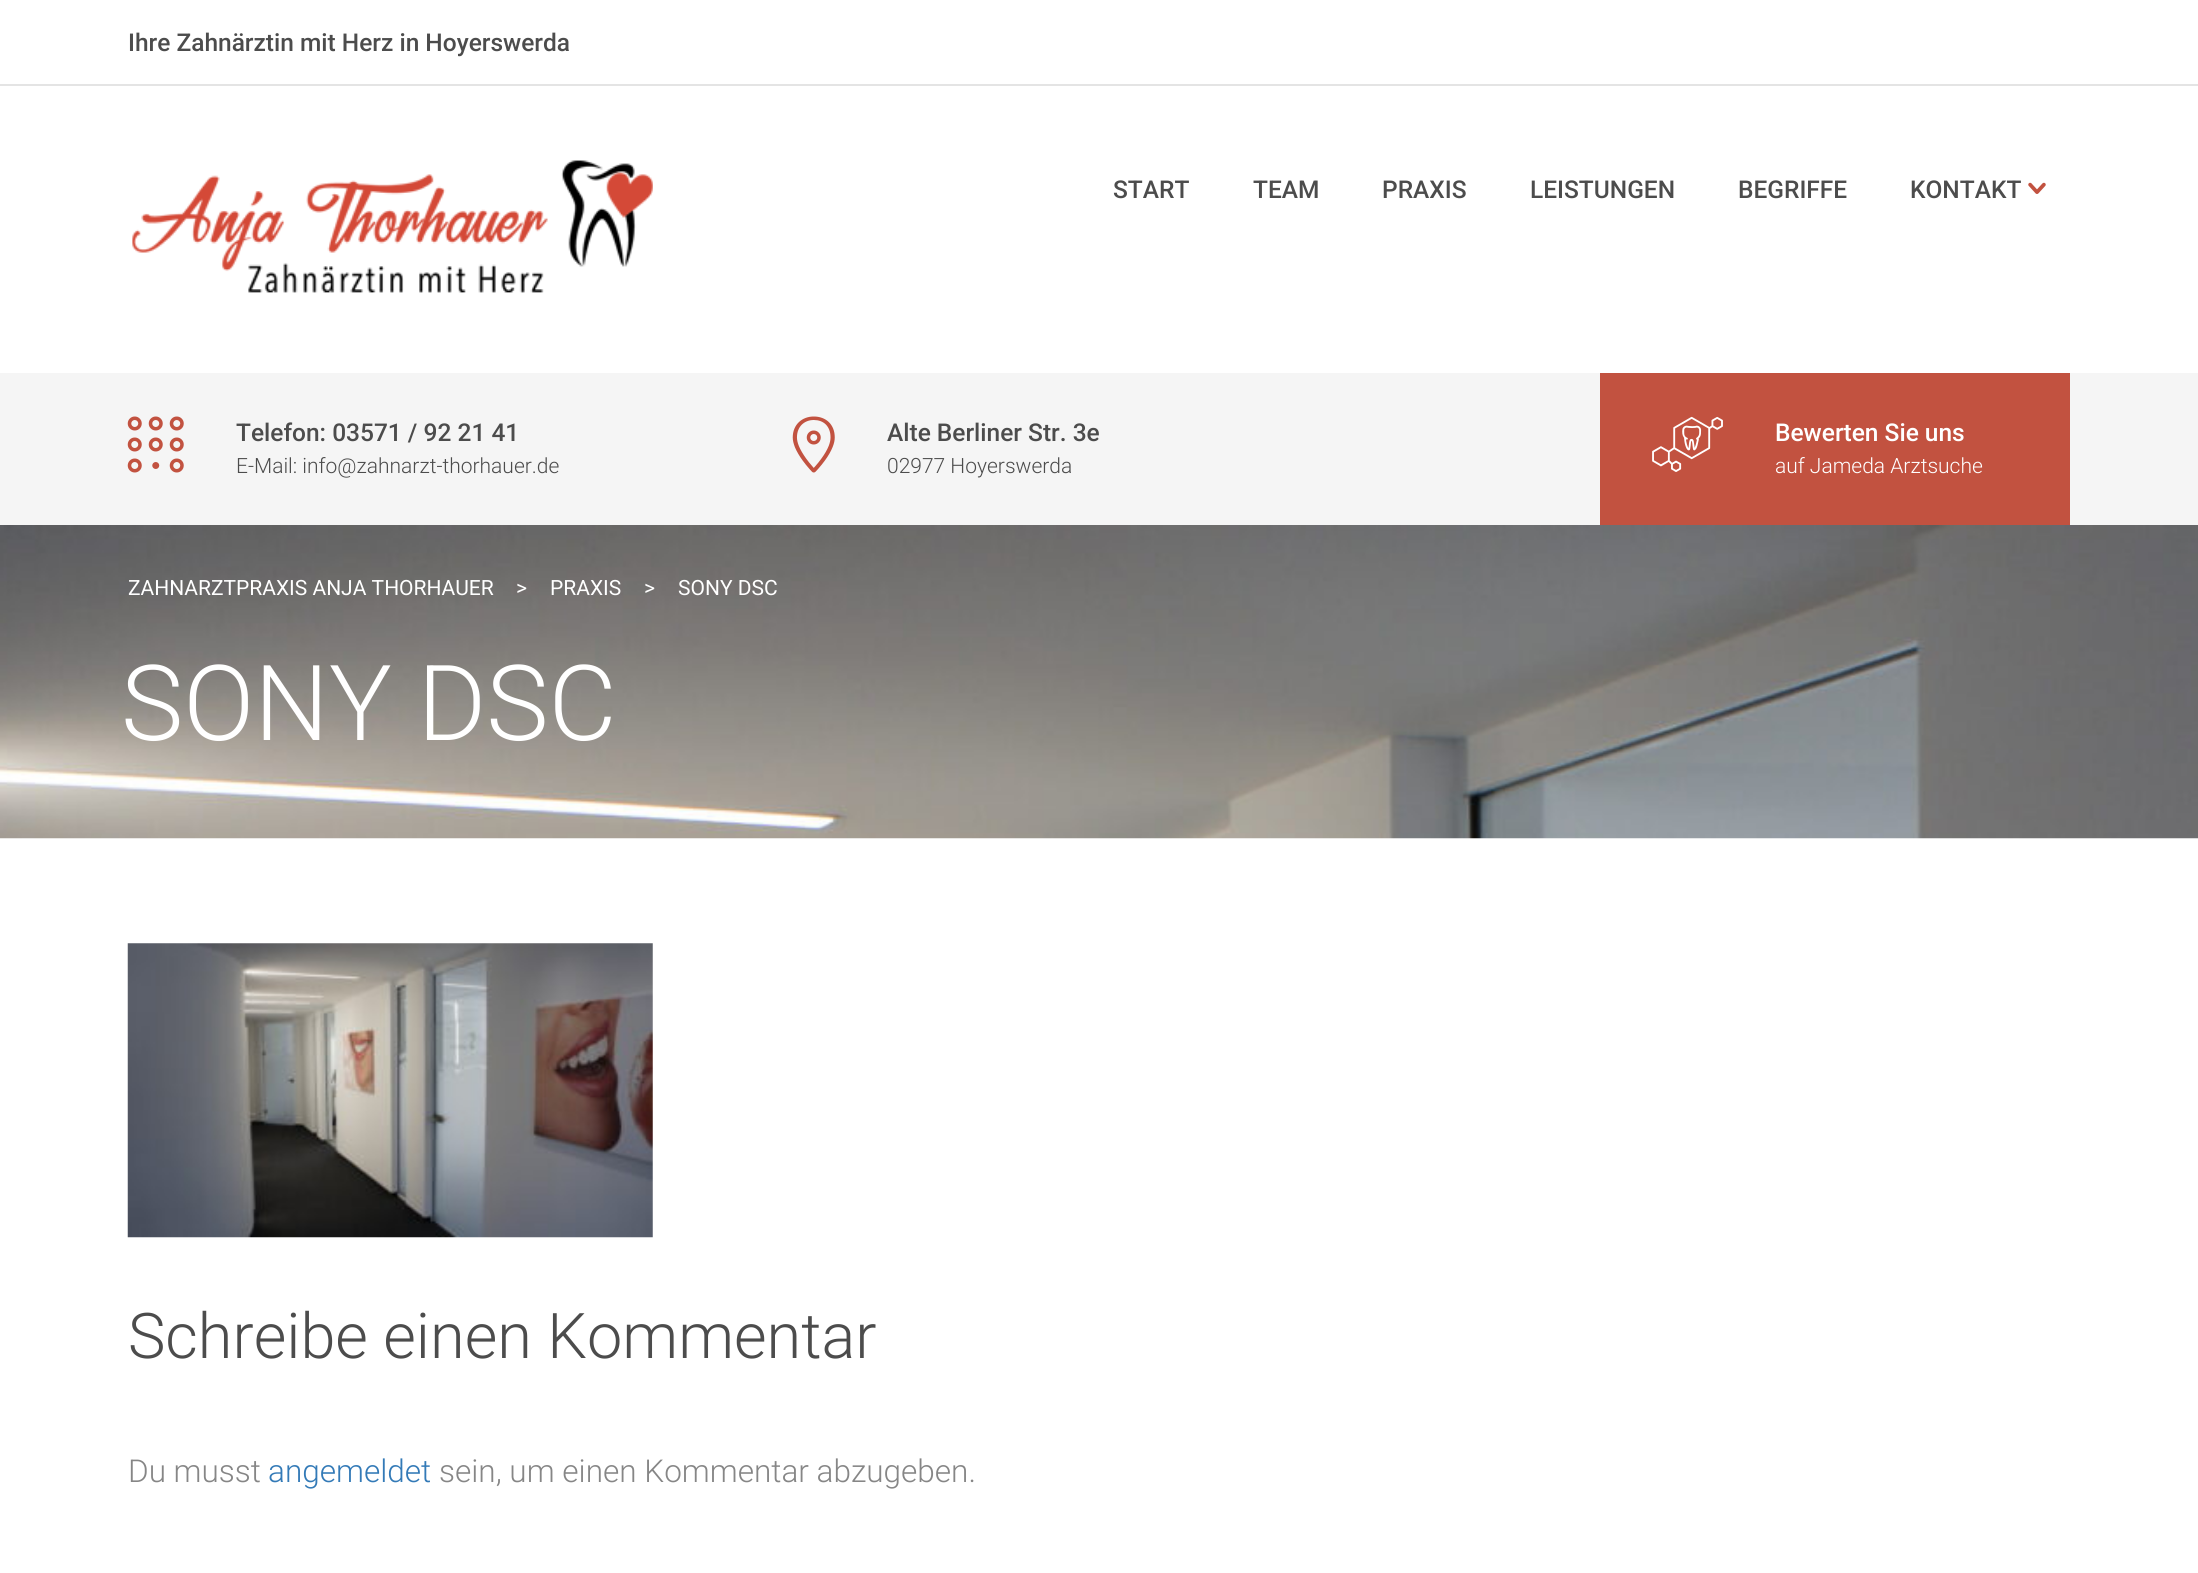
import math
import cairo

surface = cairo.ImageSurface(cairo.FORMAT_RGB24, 2198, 1573)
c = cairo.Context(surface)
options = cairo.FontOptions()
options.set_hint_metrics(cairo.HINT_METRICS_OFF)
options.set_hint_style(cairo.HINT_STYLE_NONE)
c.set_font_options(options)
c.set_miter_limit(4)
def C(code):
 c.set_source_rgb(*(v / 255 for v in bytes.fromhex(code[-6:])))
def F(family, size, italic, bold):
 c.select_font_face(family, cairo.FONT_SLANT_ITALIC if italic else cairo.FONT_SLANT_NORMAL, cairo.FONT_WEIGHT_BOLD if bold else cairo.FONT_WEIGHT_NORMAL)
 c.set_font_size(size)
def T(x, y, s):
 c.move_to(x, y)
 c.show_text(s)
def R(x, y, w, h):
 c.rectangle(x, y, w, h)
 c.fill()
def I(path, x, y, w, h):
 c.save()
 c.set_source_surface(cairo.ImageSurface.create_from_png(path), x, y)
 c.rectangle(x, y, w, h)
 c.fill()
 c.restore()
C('ffffff')
c.paint()
C('e4e4e4')
R(0,84,2198,2)
F('Roboto Medium',24.5,0,0)
C('4c4c4c')
T(128,51,'Ihre Zahnärztin mit Herz in Hoyerswerda')
I('1.png',132,160,521,133)
T(1113,198,'START')
T(1253,198,'TEAM')
T(1382,198,'PRAXIS')
T(1530,198,'LEISTUNGEN')
T(1738,198,'BEGRIFFE')
T(1910,198,'KONTAKT')
I('2.png',2028,182,18,12)
C('f5f5f5')
R(0,373,2198,152)
I('3.png',127,416,57,57)
C('4c4c4c')
T(236,441,'Telefon: 03571 / 92 21 41')
F('Roboto Light',21,0,0)
T(236,473,'E-Mail: info@zahnarzt-thorhauer.de')
I('4.png',792,416,43,57)
F('Roboto Medium',24.5,0,0)
T(887,441,'Alte Berliner Str. 3e')
F('Roboto Light',21,0,0)
T(887,473,'02977 Hoyerswerda')
C('c25240')
R(1600,373,470,152)
I('5.png',1652,416,71,56)
F('Roboto Medium',24.5,0,0)
C('ffffff')
T(1775,441,'Bewerten Sie uns')
F('Roboto Light',21,0,0)
T(1775,473,'auf Jameda Arztsuche')
I('6.png',0,525,2198,314)
F('Roboto',21,0,0)
T(128,595,'ZAHNARZTPRAXIS ANJA THORHAUER')
T(516,595,'>')
T(550,595,'PRAXIS')
T(644,595,'>')
T(678,595,'SONY DSC')
F('Roboto Light',105,0,0)
T(121,740,'SONY DSC')
I('7.png',127,943,526,295)
F('Roboto Light',63,0,0)
C('4c4c4c')
T(128,1358,'Schreibe einen Kommentar')
F('Roboto Light',31.5,0,0)
C('868686')
T(128,1482,'Du musst')
C('337ab7')
T(268,1482,'angemeldet')
C('868686')
T(439,1482,'sein, um einen Kommentar abzugeben.')
surface.write_to_png('o.png')
